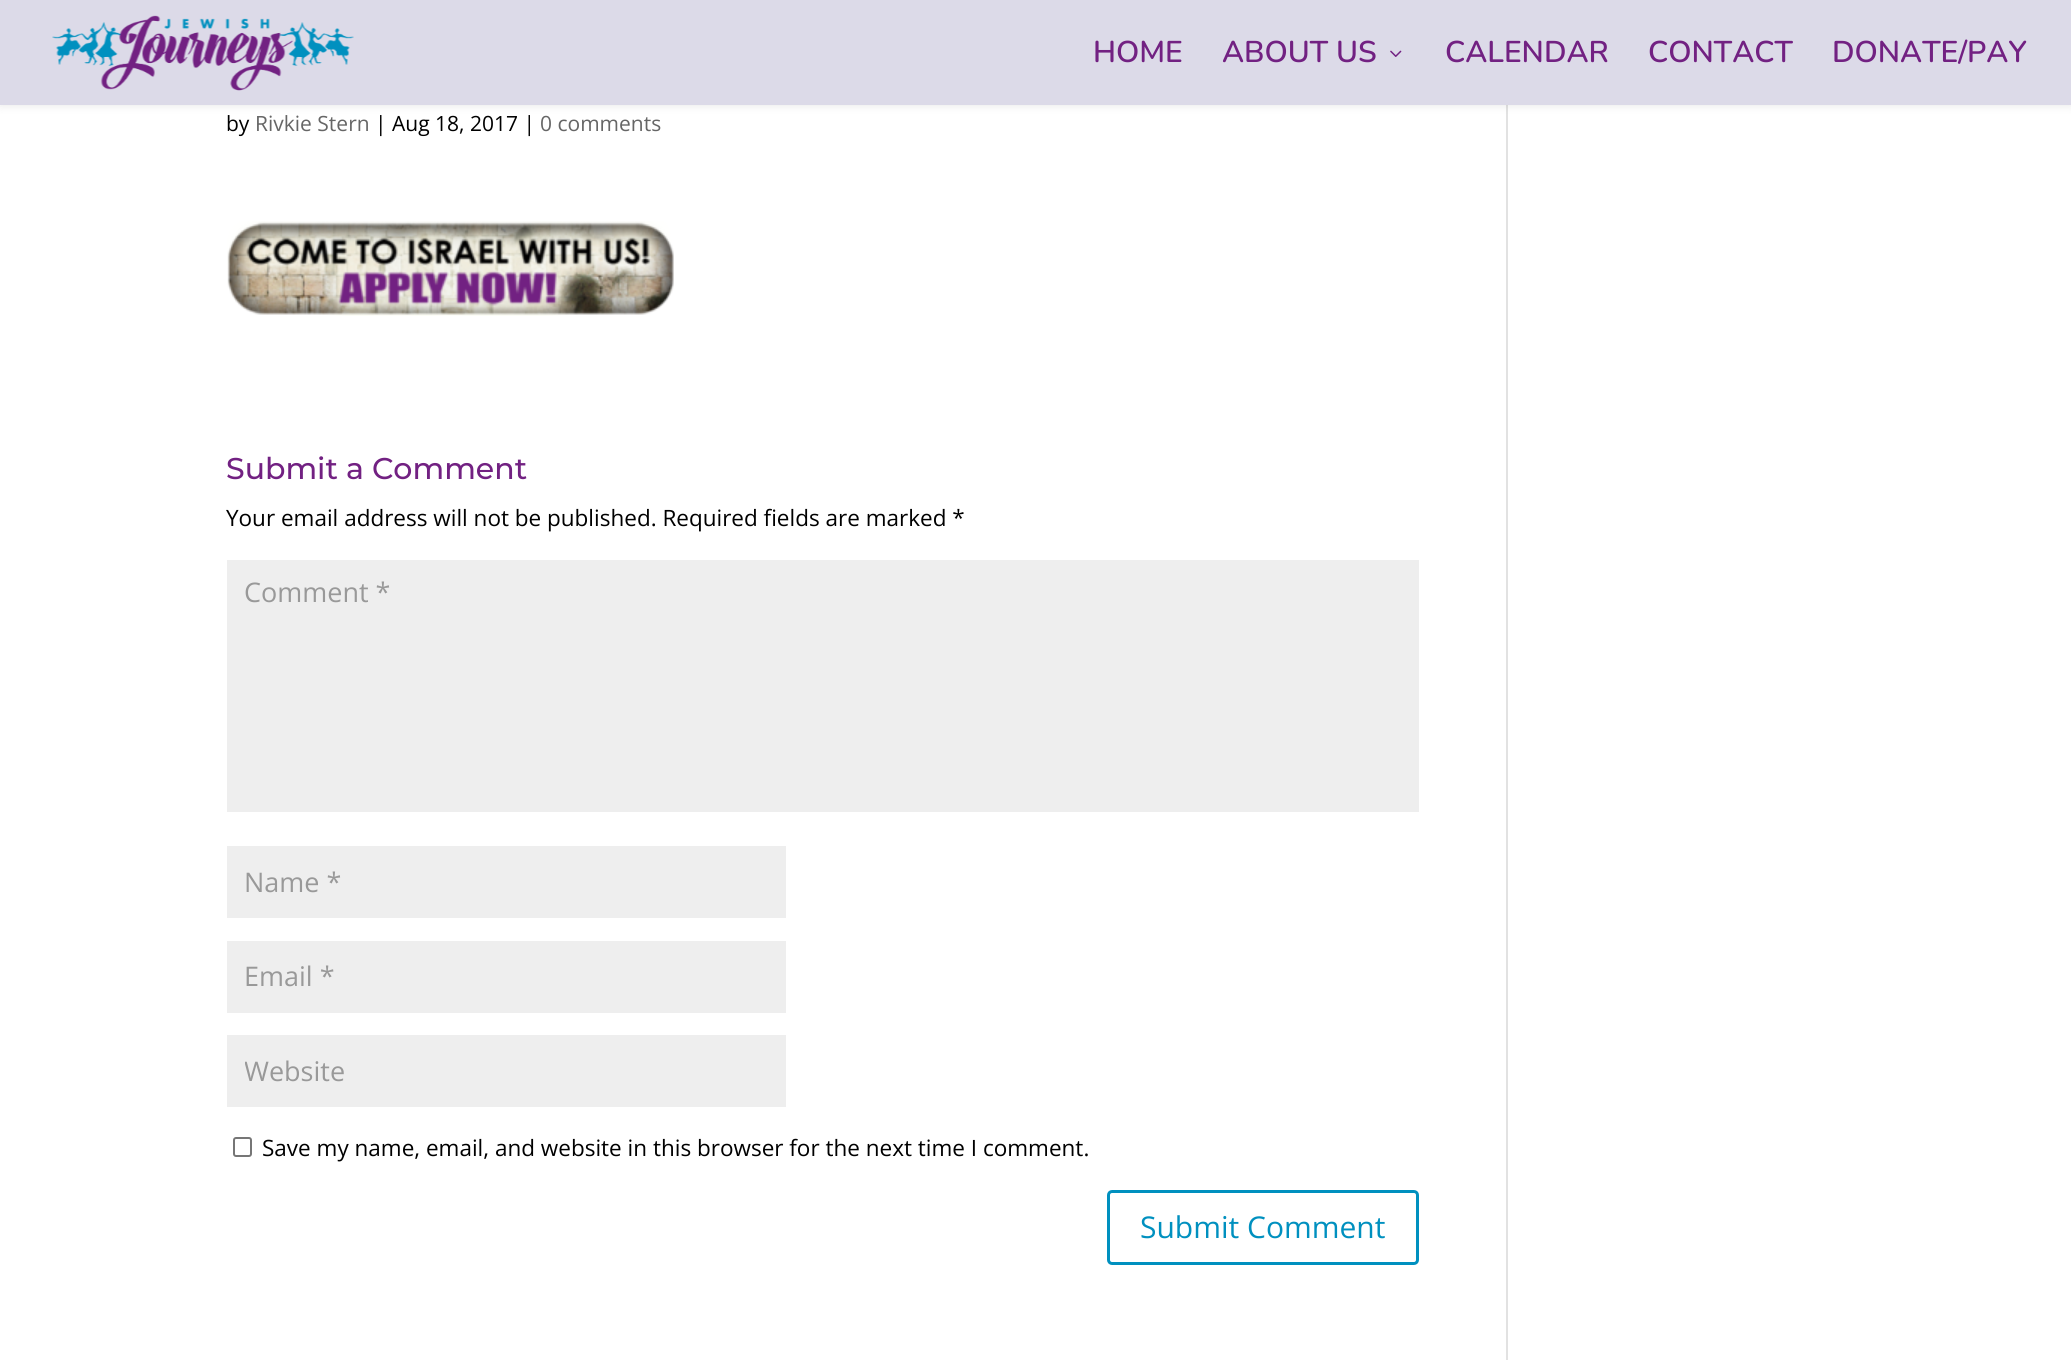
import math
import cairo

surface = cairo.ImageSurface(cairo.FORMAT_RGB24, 2071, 1360)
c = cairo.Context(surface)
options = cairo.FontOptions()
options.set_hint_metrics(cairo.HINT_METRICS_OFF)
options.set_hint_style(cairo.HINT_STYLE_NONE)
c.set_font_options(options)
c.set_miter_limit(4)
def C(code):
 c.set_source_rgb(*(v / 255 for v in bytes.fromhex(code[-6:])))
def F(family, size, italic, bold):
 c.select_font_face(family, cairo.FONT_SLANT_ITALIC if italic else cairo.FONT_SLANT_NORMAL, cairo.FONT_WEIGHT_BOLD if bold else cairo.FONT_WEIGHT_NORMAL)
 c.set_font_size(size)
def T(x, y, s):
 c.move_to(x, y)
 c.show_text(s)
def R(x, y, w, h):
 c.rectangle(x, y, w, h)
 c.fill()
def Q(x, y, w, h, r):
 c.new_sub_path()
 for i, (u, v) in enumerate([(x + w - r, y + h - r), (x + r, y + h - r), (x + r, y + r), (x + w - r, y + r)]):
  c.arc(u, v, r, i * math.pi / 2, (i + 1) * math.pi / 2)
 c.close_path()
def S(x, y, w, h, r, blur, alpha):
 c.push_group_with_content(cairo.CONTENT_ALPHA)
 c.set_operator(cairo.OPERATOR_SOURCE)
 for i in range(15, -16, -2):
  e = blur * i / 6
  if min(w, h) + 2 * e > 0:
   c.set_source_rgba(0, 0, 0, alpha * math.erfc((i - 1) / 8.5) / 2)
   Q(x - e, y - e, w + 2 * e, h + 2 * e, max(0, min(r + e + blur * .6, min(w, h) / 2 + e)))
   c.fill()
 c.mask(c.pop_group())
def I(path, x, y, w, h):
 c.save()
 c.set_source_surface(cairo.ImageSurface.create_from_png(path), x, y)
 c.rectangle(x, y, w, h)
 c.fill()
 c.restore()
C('ffffff')
c.paint()
C('e2e2e2')
R(1506,105,2,1255)
C('000000')
S(0,0,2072,105,0,5,.1)
C('dcdae8')
R(0,0,2071,105)
I('1.png',52,15,302,76)
F('Nunito SemiBold',30,0,0)
C('722182')
T(1093,62,'HOME')
T(1222,62,'ABOUT US')
I('2.png',1390,50,12,7)
T(1445,62,'CALENDAR')
T(1648,62,'CONTACT')
T(1832,62,'DONATE/PAY')
F('Open Sans',21,0,0)
C('000000')
T(226,131,'by')
C('666666')
T(255,131,'Rivkie Stern')
C('000000')
T(375,131,'| Aug 18, 2017 |')
C('666666')
T(540,131,'0 comments')
I('3.png',227,221,447,95)
F('Montserrat Medium',30,0,0)
C('722182')
T(226,479,'Submit a Comment')
F('Open Sans',22.5,0,0)
C('000000')
T(226,526,'Your email address will not be published. Required fields are marked *')
C('eeeeee')
R(227,560,1192,252)
F('Open Sans',27,0,0)
C('999999')
T(244,602,'Comment *')
C('eeeeee')
R(227,846,559,72)
C('999999')
T(244,892,'Name *')
C('eeeeee')
R(227,941,559,72)
C('999999')
T(244,986,'Email *')
C('eeeeee')
R(227,1035,559,72)
c.save()
c.rectangle(245,1053,523,36)
c.clip()
C('999999')
T(244,1081,'Website')
c.restore()
Q(234,1138,17,18,2)
C('767676')
c.stroke()
F('Open Sans',22.5,0,0)
C('000000')
T(262,1156,'Save my name, email, and website in this browser for the next time I comment.')
Q(1108.5,1191.5,309,72,3.5)
C('0090bf')
c.set_line_width(3)
c.stroke()
F('Open Sans',30,0,0)
T(1140,1238,'Submit Comment')
surface.write_to_png('o.png')
